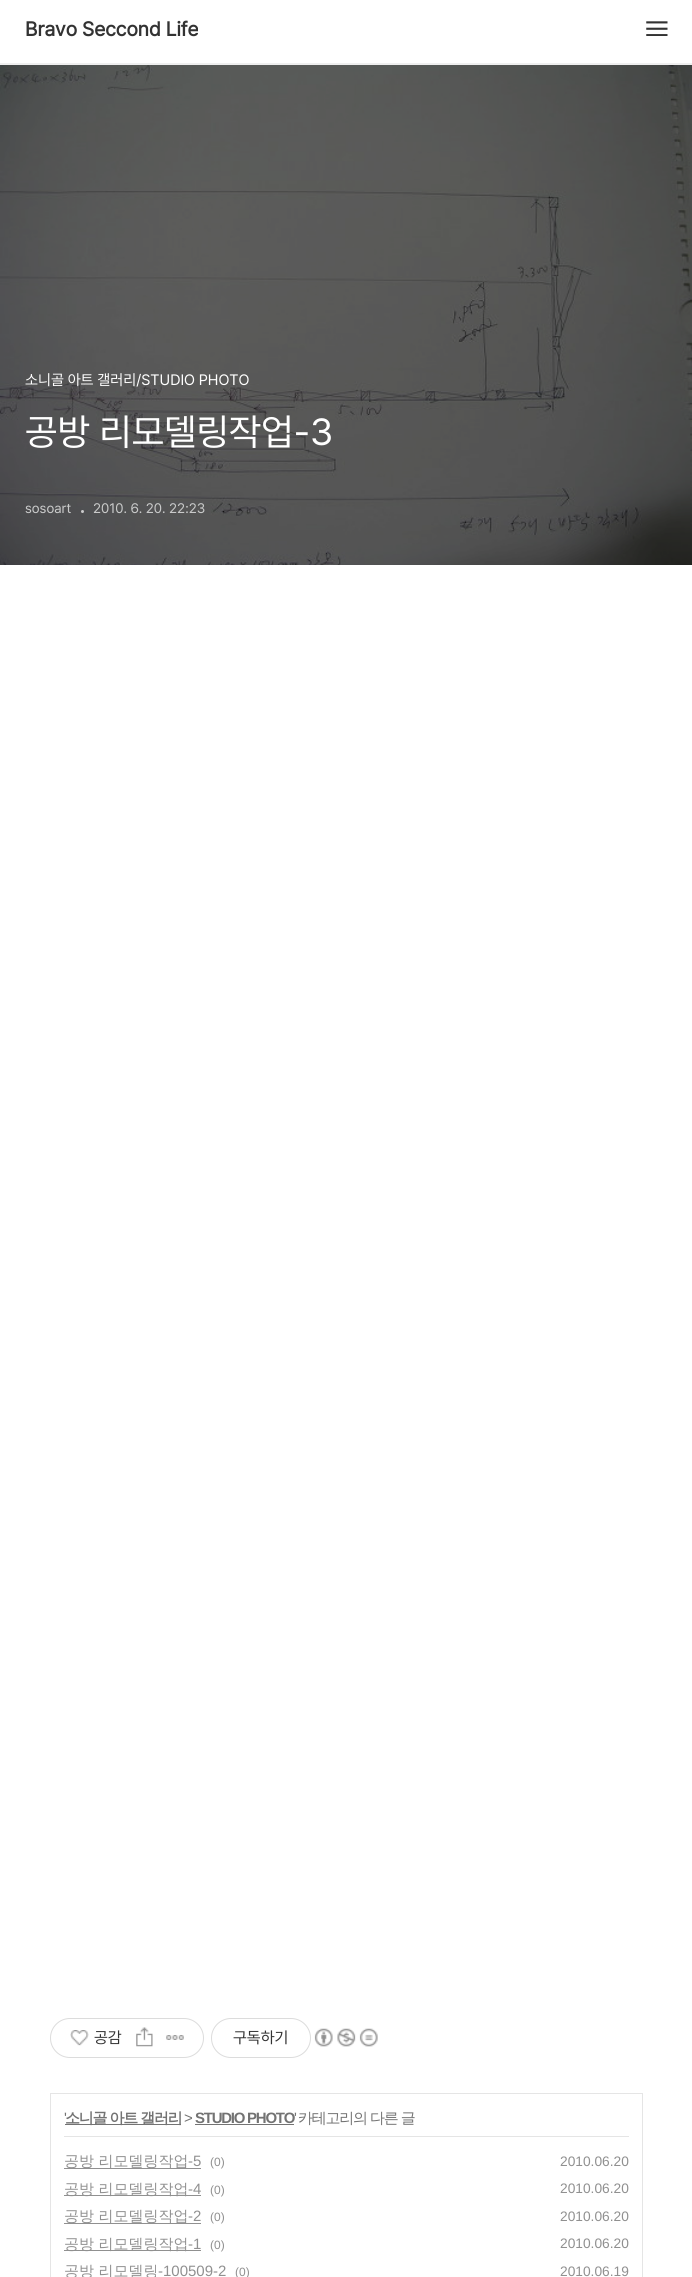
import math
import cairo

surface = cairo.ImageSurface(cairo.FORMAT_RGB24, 692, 2277)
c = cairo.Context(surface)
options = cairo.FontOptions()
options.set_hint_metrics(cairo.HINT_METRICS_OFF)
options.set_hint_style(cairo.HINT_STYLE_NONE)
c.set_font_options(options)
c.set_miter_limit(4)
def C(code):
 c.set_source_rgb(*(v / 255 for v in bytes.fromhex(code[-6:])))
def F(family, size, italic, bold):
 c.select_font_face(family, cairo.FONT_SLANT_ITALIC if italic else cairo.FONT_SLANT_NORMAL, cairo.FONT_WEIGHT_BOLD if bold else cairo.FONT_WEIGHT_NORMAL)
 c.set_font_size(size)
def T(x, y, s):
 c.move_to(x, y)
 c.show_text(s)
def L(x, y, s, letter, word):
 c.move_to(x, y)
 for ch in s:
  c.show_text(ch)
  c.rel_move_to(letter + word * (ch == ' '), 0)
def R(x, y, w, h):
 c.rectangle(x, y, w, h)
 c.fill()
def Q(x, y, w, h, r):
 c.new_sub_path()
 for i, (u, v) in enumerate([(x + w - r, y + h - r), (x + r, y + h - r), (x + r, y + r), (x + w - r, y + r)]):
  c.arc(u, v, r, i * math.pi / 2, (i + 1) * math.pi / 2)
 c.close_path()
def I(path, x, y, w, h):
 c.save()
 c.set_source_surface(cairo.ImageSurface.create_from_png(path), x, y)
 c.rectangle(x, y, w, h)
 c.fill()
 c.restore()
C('ffffff')
c.paint()
C('efefef')
R(0,63,692,2)
F('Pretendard',20,0,1)
C('333333')
T(25,36,'Bravo Seccond Life')
I('1.png',646,21,22,15)
I('2.png',0,65,692,500)
F('Pretendard',15,0,0)
C('ffffff')
T(25,385,'소니골 아트 갤러리/STUDIO PHOTO')
F('Pretendard',37.5,0,0)
T(25,445,'공방 리모델링작업-3')
F('Pretendard',13.75,0,0)
C('c9caca')
T(25,513,'sosoart')
C('cacacb')
c.new_path()
c.arc(82.5,511.5,1.5,0,2 * math.pi)
c.fill()
C('c9caca')
T(93,513,'2010. 6. 20. 22:23')
Q(50.5,2018.5,153,39,19.5)
C('dcdcdc')
c.set_line_width(1)
c.stroke()
I('3.png',70,2030,19,16)
F('Pretendard',16,0,0)
C('333333')
T(94,2043,'공감')
I('4.png',136,2027,17,20)
I('5.png',166,2035,18,5)
Q(211.5,2018.5,99,39,19.5)
C('dcdcdc')
c.stroke()
C('333333')
T(233,2043,'구독하기')
I('6.png',314,2028,19,19)
I('7.png',337,2028,19,19)
I('8.png',359,2028,19,19)
c.rectangle(50.5,2093.5,592,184)
C('e5e5e5')
c.stroke()
R(64,2136,565,1)
F('Liberation Sans',15,0,0)
C('737373')
L(64,2123,'\'',-1.25,0)
R(65,2124,116,1)
F('WenQuanYi Zen Hei',15,0,1)
L(65,2123,'소니골 아트 갤러리',-1.25,0)
F('Liberation Sans',15,0,1)
L(195,2123,'STUDIO PHOTO',-1.25,0)
R(195,2124,99,1)
F('WenQuanYi Zen Hei Medium',15,0,0)
L(298,2123,'카테고리의 다른 글',-1.25,0)
F('Liberation Sans',15,0,0)
L(184,2123,'>',-1.25,0)
L(294,2123,'\'',-1.25,0)
C('909090')
R(64,2168,137,1)
F('WenQuanYi Zen Hei Medium',15,0,0)
T(64,2166,'공방 리모델링작업')
F('Liberation Sans',15,0,0)
T(188,2166,'-5')
F('Liberation Sans',12,0,0)
T(210,2166,'(0)')
F('Liberation Sans',13.75,0,0)
T(560,2166,'2010.06.20')
R(64,2195,137,1)
F('WenQuanYi Zen Hei Medium',15,0,0)
T(64,2194,'공방 리모델링작업')
F('Liberation Sans',15,0,0)
T(188,2194,'-4')
F('Liberation Sans',12,0,0)
T(210,2194,'(0)')
F('Liberation Sans',13.75,0,0)
T(560,2193,'2010.06.20')
R(64,2223,137,1)
F('WenQuanYi Zen Hei Medium',15,0,0)
T(64,2221,'공방 리모델링작업')
F('Liberation Sans',15,0,0)
T(188,2221,'-2')
F('Liberation Sans',12,0,0)
T(210,2221,'(0)')
F('Liberation Sans',13.75,0,0)
T(560,2221,'2010.06.20')
R(64,2250,137,1)
F('WenQuanYi Zen Hei Medium',15,0,0)
T(64,2249,'공방 리모델링작업')
F('Liberation Sans',15,0,0)
T(188,2249,'-1')
F('Liberation Sans',12,0,0)
T(210,2249,'(0)')
F('Liberation Sans',13.75,0,0)
T(560,2248,'2010.06.20')
F('WenQuanYi Zen Hei Medium',15,0,0)
T(64,2276,'공방 리모델링')
F('Liberation Sans',15,0,0)
T(158,2276,'-100509-2')
F('Liberation Sans',12,0,0)
T(235,2276,'(0)')
F('Liberation Sans',13.75,0,0)
T(560,2276,'2010.06.19')
surface.write_to_png('o.png')
